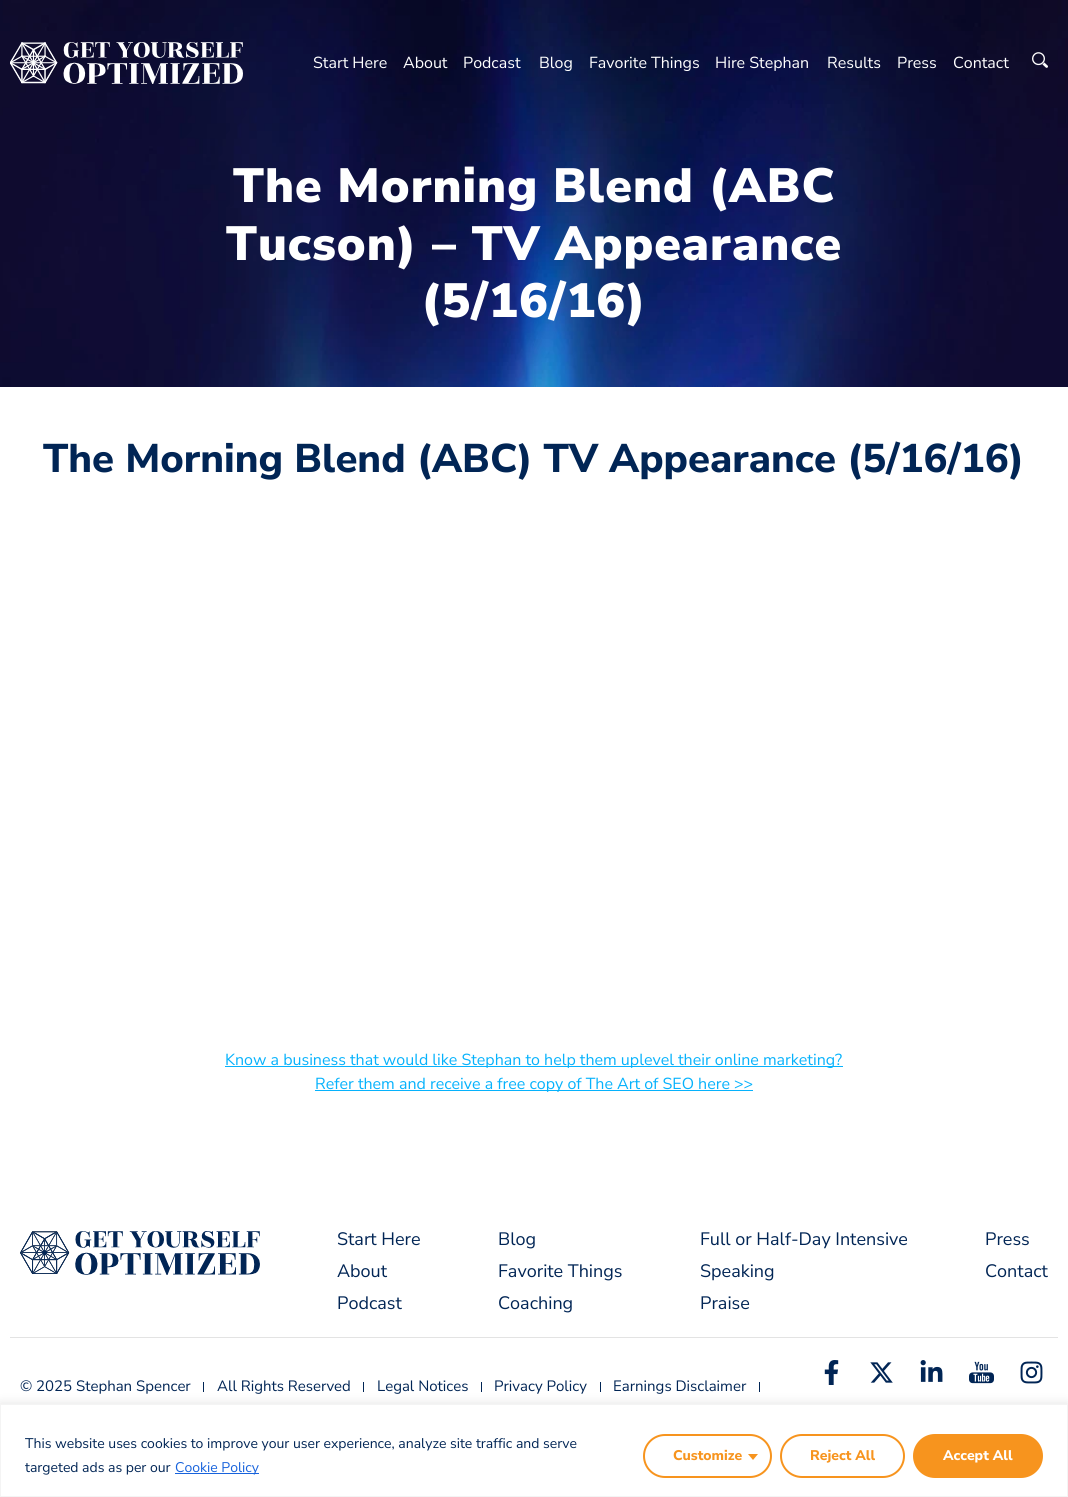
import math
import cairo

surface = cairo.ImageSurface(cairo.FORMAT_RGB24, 1068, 1497)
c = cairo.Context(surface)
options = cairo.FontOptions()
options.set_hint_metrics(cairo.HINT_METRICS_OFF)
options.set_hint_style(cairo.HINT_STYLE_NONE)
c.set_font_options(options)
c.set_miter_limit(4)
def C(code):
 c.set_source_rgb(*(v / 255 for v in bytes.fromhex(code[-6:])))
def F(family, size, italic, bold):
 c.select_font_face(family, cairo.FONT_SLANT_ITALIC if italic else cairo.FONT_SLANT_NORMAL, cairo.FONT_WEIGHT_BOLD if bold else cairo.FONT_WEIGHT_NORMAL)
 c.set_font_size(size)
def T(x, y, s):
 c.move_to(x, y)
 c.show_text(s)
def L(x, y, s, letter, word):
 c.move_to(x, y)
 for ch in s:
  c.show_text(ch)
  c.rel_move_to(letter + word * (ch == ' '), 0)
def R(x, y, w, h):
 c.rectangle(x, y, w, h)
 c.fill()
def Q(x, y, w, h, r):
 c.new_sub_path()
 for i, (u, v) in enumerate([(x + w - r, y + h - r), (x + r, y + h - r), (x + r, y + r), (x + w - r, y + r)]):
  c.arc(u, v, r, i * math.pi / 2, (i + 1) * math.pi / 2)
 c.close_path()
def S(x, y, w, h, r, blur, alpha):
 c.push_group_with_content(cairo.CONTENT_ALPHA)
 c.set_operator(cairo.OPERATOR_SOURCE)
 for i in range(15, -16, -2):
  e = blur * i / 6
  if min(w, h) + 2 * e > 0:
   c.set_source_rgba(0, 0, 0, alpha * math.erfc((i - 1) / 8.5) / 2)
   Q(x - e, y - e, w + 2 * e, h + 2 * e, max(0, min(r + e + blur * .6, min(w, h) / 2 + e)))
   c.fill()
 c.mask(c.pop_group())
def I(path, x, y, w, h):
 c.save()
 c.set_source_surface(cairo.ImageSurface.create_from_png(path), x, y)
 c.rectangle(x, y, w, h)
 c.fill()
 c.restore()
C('ffffff')
c.paint()
I('3.png',0,0,1068,387)
I('1.png',10,42,233,42)
F('Nunito Sans',16,0,0)
C('ffffff')
T(313,68,'Start Here')
T(403,68,'About')
T(463,68,'Podcast')
T(539,68,'Blog')
T(589,68,'Favorite Things')
T(715,68,'Hire Stephan')
T(827,68,'Results')
T(897,68,'Press')
T(953,68,'Contact')
I('2.png',1032,52,16,16)
F('Nunito Sans Black',48,0,0)
L(233,202,'The Morning Blend (ABC',1,0)
L(226,260,'Tucson) – TV Appearance',1,0)
L(421,317,'(5/16/16)',1,0)
F('Nunito Sans ExtraBold',40,0,0)
C('012555')
T(43,472,'The Morning Blend (ABC) TV Appearance (5/16/16)')
C('06b2fc')
R(225,1066,618,1)
F('Nunito Sans',16,0,0)
T(225,1065,'Know a business that would like Stephan to help them uplevel their online marketing?')
R(315,1090,438,1)
T(315,1089,'Refer them and receive a free copy of The Art of SEO here >>')
I('4.png',20,1231,240,44)
F('Nunito Sans',18,0,0)
C('012555')
T(337,1245,'Start Here')
T(337,1277,'About')
T(337,1309,'Podcast')
T(498,1245,'Blog')
T(498,1277,'Favorite Things')
T(498,1309,'Coaching')
T(700,1245,'Full or Half-Day Intensive')
T(700,1277,'Speaking')
T(700,1309,'Praise')
T(985,1245,'Press')
T(985,1277,'Contact')
C('e3e3e3')
R(10,1337,1048,1)
I('5.png',824,1360,15,25)
I('6.png',870,1362,23,21)
I('7.png',920,1360,23,22)
I('8.png',969,1361,25,23)
I('9.png',1020,1361,23,23)
F('Nunito Sans',15,0,0)
C('012555')
T(20,1391,'© 2025 Stephan Spencer')
R(203,1382,1,10)
T(217,1391,'All Rights Reserved')
R(363,1382,1,10)
T(377,1391,'Legal Notices')
R(481,1382,1,10)
T(494,1391,'Privacy Policy')
R(600,1382,1,10)
T(613,1391,'Earnings Disclaimer')
R(759,1382,1,10)
C('acabab')
S(0,1403,1068,93,0,5,.3)
C('ffffff')
c.rectangle(.5,1404.5,1067,92)
c.fill_preserve()
C('f4f4f4')
c.set_line_width(1)
c.stroke()
F('Nunito Sans',14,0,0)
C('012555')
T(25,1448,'This website uses cookies to improve your user experience, analyze site traffic and serve')
T(25,1472,'targeted ads as per our')
C('1863dc')
R(175,1473,84,1)
T(175,1472,'Cookie Policy')
Q(644,1435,127,42,21)
C('f7941e')
c.set_line_width(2)
c.stroke()
F('Nunito Sans ExtraBold',14,0,0)
T(673,1460,'Customize')
c.new_path()
c.move_to(748,1454)
c.line_to(758,1454)
c.line_to(753,1460)
c.close_path()
c.fill()
Q(781,1435,123,42,21)
c.stroke()
T(810,1460,'Reject All')
Q(914,1435,128,42,21)
c.fill_preserve()
c.stroke()
C('ffffff')
T(943,1460,'Accept All')
surface.write_to_png('o.png')
